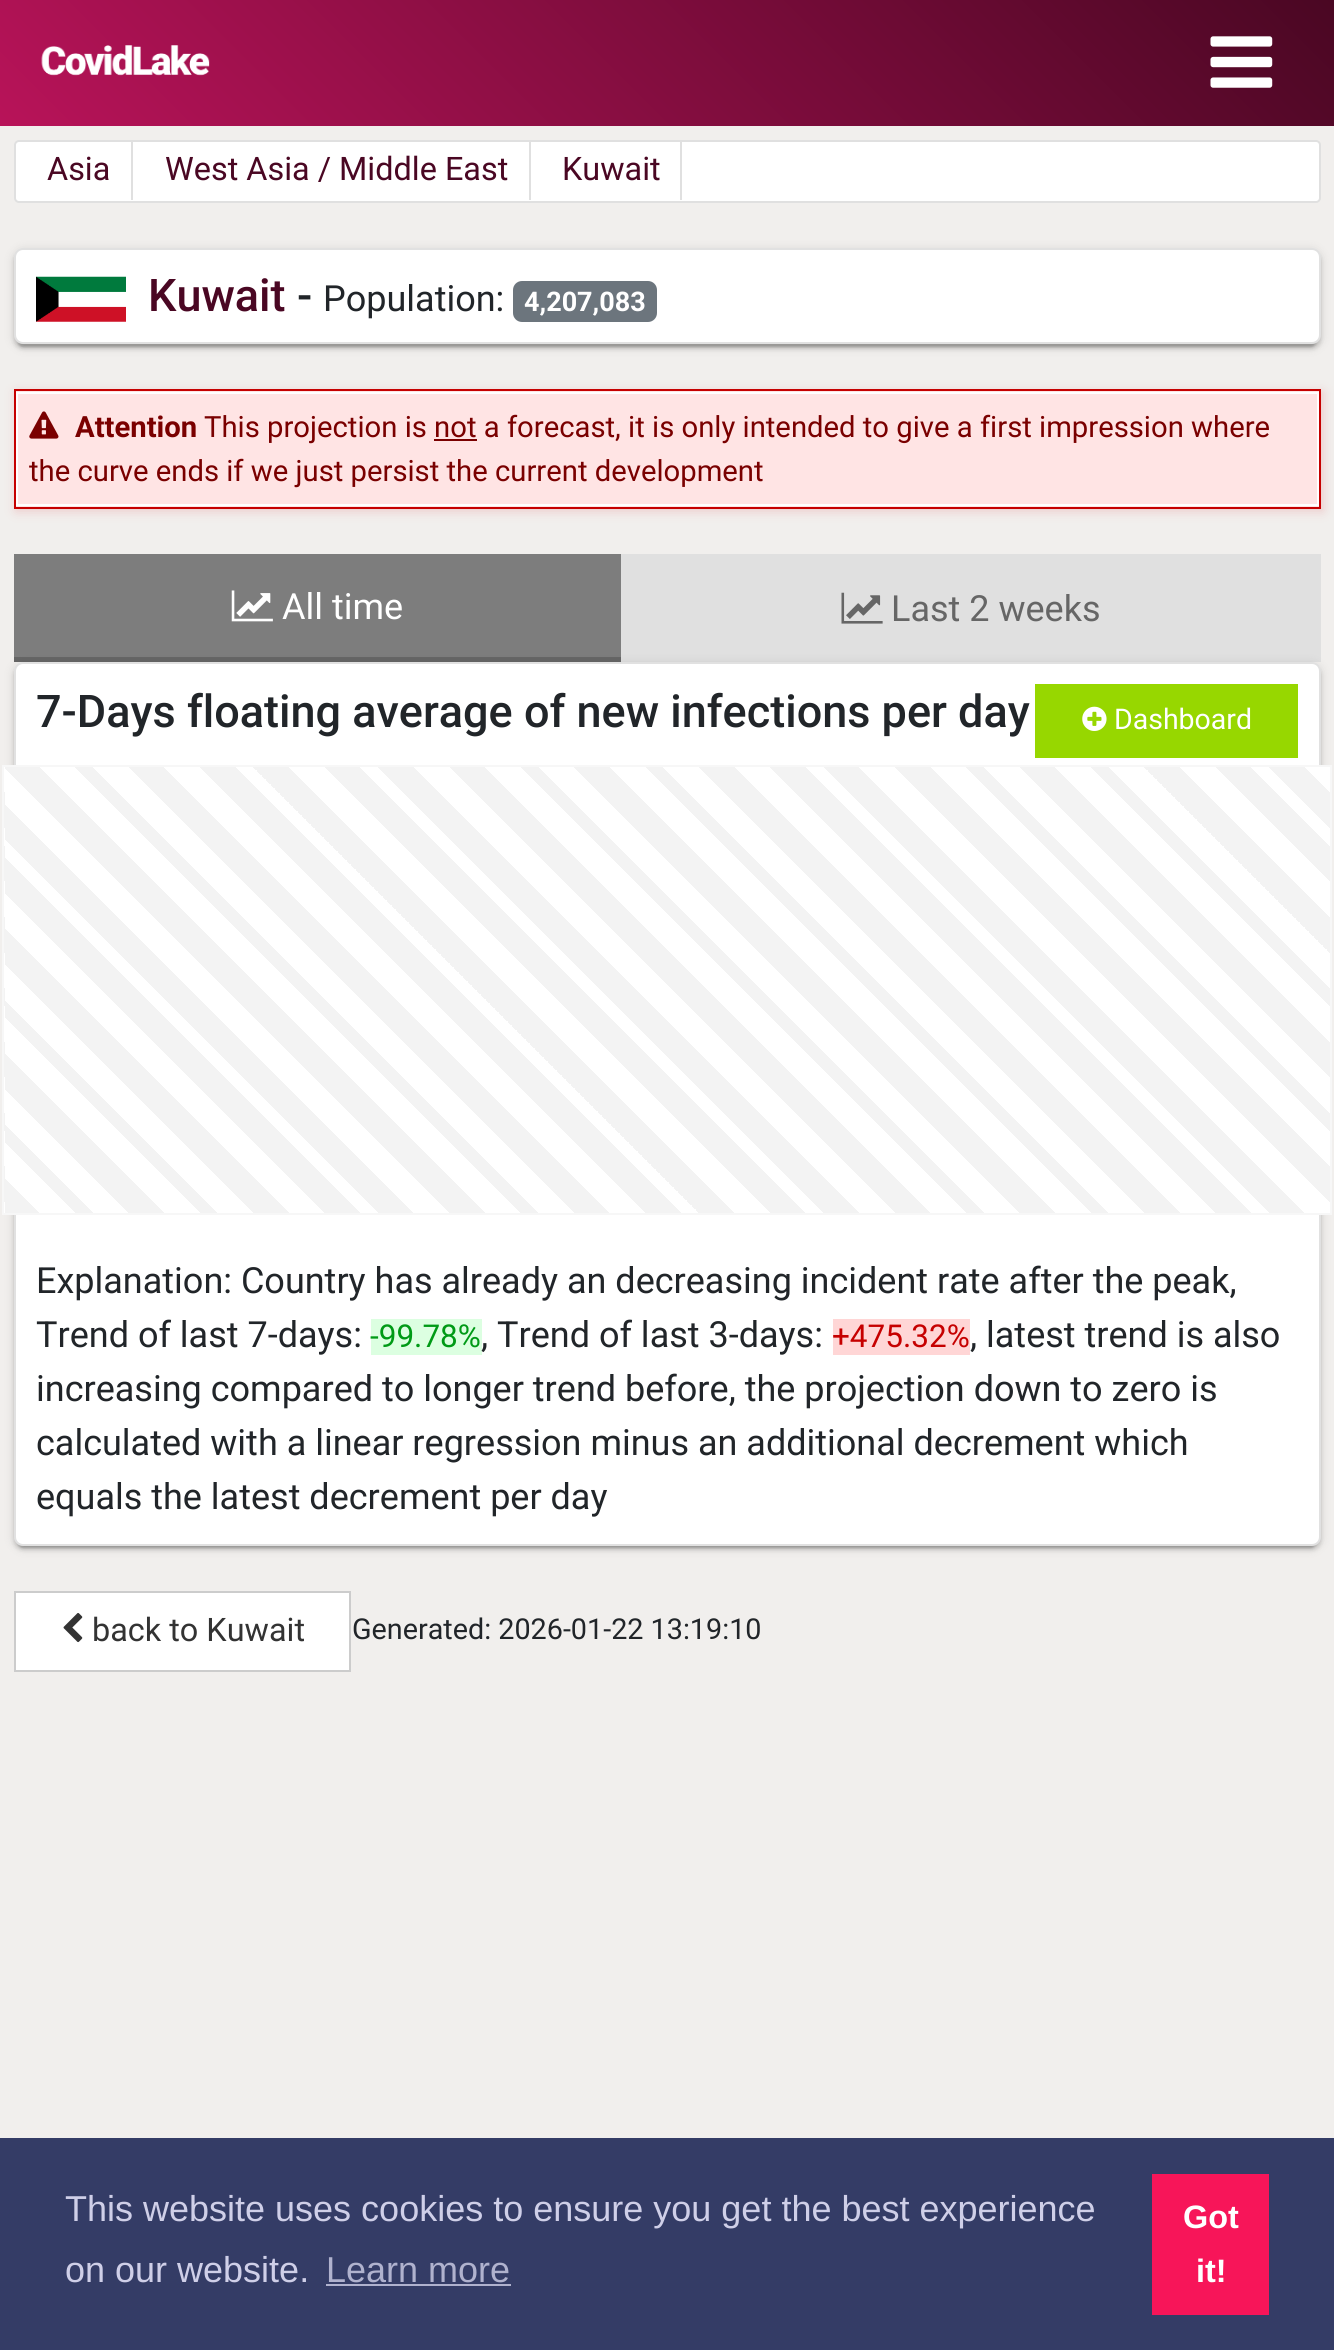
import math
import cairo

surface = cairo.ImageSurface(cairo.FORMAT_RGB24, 1334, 2350)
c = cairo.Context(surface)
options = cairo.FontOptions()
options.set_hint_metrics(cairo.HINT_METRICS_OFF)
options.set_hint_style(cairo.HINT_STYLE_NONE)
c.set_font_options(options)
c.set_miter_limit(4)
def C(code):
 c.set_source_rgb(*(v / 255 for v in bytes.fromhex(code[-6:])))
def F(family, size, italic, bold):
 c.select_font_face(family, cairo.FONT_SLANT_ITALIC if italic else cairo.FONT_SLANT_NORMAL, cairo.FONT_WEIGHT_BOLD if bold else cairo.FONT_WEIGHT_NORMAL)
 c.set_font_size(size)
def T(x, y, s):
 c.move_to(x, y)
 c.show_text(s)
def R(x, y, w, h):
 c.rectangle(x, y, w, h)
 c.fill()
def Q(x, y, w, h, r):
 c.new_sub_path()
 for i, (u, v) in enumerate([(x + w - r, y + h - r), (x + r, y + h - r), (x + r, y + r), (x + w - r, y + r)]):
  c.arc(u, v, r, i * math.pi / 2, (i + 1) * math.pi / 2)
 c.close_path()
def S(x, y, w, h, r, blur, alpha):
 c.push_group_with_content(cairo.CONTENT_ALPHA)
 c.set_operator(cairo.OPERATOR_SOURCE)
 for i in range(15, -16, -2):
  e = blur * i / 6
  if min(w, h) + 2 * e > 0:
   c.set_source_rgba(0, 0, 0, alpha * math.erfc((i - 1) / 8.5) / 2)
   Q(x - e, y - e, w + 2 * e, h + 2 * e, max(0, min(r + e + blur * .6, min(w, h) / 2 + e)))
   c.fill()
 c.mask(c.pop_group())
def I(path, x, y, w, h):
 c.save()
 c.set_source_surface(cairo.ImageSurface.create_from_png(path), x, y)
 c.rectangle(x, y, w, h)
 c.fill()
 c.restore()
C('f1efed')
c.paint()
gradient = cairo.LinearGradient(302,428,1032,-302)
gradient.add_color_stop_rgba(0,0.722,0.075,0.349,1)
gradient.add_color_stop_rgba(1,0.29,0.027,0.137,1)
c.set_source(gradient)
R(0,0,1334,126)
I('1.png',41,45,169,31)
I('2.png',1210,36,63,52)
C('ffffff')
Q(15,141,1305,61,4)
c.fill_preserve()
C('e0e0e0')
c.stroke()
R(131,142,2,58)
F('Roboto',32.4,0,0)
C('4a0723')
T(47,180,'Asia')
C('e0e0e0')
R(529,142,2,58)
C('4a0723')
T(165,180,'West Asia / Middle East')
C('e0e0e0')
R(680,142,2,58)
C('4a0723')
T(562,180,'Kuwait')
C('000000')
S(14,250,1307,97,9,5.5,.12)
S(14,252,1307,97,9,2,.14)
S(18,259,1298,88,5,1,.2)
C('ffffff')
Q(14,248,1307,96,9)
c.fill()
Q(15,249,1305,94,8)
c.set_source_rgba(0,0,0,0.12)
c.stroke()
I('3.png',36,276,90,46)
F('Roboto Medium',45,0,0)
C('4a0723')
T(148,311,'Kuwait')
C('212529')
T(297,311,'-')
F('Roboto',36,0,0)
T(323,311,'Population:')
C('6c757d')
Q(513,281,144,41,9)
c.fill()
F('Roboto',27,0,1)
C('ffffff')
T(524,311,'4,207,083')
C('edc8c8')
S(16,392,1307,119,0,5.5,1)
C('ffe4e4')
c.rectangle(15,390,1305,118)
c.fill_preserve()
C('c60000')
c.stroke()
c.rectangle(17,393,1301,112)
C('ffffff')
c.stroke()
I('4.png',29,411,30,28)
F('Roboto',29.25,0,1)
C('7a0000')
T(75,437,'Attention')
F('Roboto',29.25,0,0)
T(204,437,'This projection is not a forecast, it is only intended to give a first impression where')
R(434,439,43,2)
T(29,481,'the curve ends if we just persist the current development')
C('7d7d7d')
R(14,554,607,103)
C('666666')
R(14,657,607,5)
I('5.png',231,590,42,32)
F('Roboto',36,0,0)
C('ffffff')
T(282,619,'All time')
C('e0e0e0')
R(621,554,700,108)
I('6.png',841,592,42,32)
C('666666')
T(891,621,'Last 2 weeks')
C('000000')
S(14,664,1307,884,9,5.5,.12)
S(14,666,1307,884,9,2,.14)
S(18,673,1298,875,5,1,.2)
C('ffffff')
Q(14,662,1307,884,9)
c.fill()
Q(15,663,1305,882,8)
c.set_source_rgba(0,0,0,0.12)
c.stroke()
F('Roboto Medium',45,0,0)
C('212529')
T(36,727,'7-Days floating average of new infections per day')
C('97d700')
R(1035,684,263,74)
I('7.png',1082,706,25,25)
F('Roboto',28.5,0,0)
C('ffffff')
T(1114,729,'Dashboard')
gradient = cairo.LinearGradient(-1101,1433,-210,542)
gradient.add_color_stop_rgba(0,0.953,0.953,0.953,1)
gradient.add_color_stop_rgba(.02,0.953,0.953,0.953,1)
gradient.add_color_stop_rgba(.02,1,1,1,1)
gradient.add_color_stop_rgba(.04,1,1,1,1)
gradient.add_color_stop_rgba(.04,0.953,0.953,0.953,1)
gradient.add_color_stop_rgba(.05,0.953,0.953,0.953,1)
gradient.add_color_stop_rgba(.05,1,1,1,1)
gradient.add_color_stop_rgba(.07,1,1,1,1)
gradient.add_color_stop_rgba(.07,0.953,0.953,0.953,1)
gradient.add_color_stop_rgba(.09,0.953,0.953,0.953,1)
gradient.add_color_stop_rgba(.09,1,1,1,1)
gradient.add_color_stop_rgba(.11,1,1,1,1)
gradient.add_color_stop_rgba(.11,0.953,0.953,0.953,1)
gradient.add_color_stop_rgba(.12,0.953,0.953,0.953,1)
gradient.add_color_stop_rgba(.12,1,1,1,1)
gradient.add_color_stop_rgba(.14,1,1,1,1)
gradient.add_color_stop_rgba(.14,0.953,0.953,0.953,1)
gradient.add_color_stop_rgba(.16,0.953,0.953,0.953,1)
gradient.add_color_stop_rgba(.16,1,1,1,1)
gradient.add_color_stop_rgba(.18,1,1,1,1)
gradient.add_color_stop_rgba(.18,0.953,0.953,0.953,1)
gradient.add_color_stop_rgba(.2,0.953,0.953,0.953,1)
gradient.add_color_stop_rgba(.2,1,1,1,1)
gradient.add_color_stop_rgba(.21,1,1,1,1)
gradient.add_color_stop_rgba(.21,0.953,0.953,0.953,1)
gradient.add_color_stop_rgba(.23,0.953,0.953,0.953,1)
gradient.add_color_stop_rgba(.23,1,1,1,1)
gradient.add_color_stop_rgba(.25,1,1,1,1)
gradient.add_color_stop_rgba(.25,0.953,0.953,0.953,1)
gradient.add_color_stop_rgba(.27,0.953,0.953,0.953,1)
gradient.add_color_stop_rgba(.27,1,1,1,1)
gradient.add_color_stop_rgba(.29,1,1,1,1)
gradient.add_color_stop_rgba(.29,0.953,0.953,0.953,1)
gradient.add_color_stop_rgba(.3,0.953,0.953,0.953,1)
gradient.add_color_stop_rgba(.3,1,1,1,1)
gradient.add_color_stop_rgba(.32,1,1,1,1)
gradient.add_color_stop_rgba(.32,0.953,0.953,0.953,1)
gradient.add_color_stop_rgba(.34,0.953,0.953,0.953,1)
gradient.add_color_stop_rgba(.34,1,1,1,1)
gradient.add_color_stop_rgba(.36,1,1,1,1)
gradient.add_color_stop_rgba(.36,0.953,0.953,0.953,1)
gradient.add_color_stop_rgba(.38,0.953,0.953,0.953,1)
gradient.add_color_stop_rgba(.38,1,1,1,1)
gradient.add_color_stop_rgba(.39,1,1,1,1)
gradient.add_color_stop_rgba(.39,0.953,0.953,0.953,1)
gradient.add_color_stop_rgba(.41,0.953,0.953,0.953,1)
gradient.add_color_stop_rgba(.41,1,1,1,1)
gradient.add_color_stop_rgba(.43,1,1,1,1)
gradient.add_color_stop_rgba(.43,0.953,0.953,0.953,1)
gradient.add_color_stop_rgba(.45,0.953,0.953,0.953,1)
gradient.add_color_stop_rgba(.45,1,1,1,1)
gradient.add_color_stop_rgba(.46,1,1,1,1)
gradient.add_color_stop_rgba(.46,0.953,0.953,0.953,1)
gradient.add_color_stop_rgba(.48,0.953,0.953,0.953,1)
gradient.add_color_stop_rgba(.48,1,1,1,1)
gradient.add_color_stop_rgba(.5,1,1,1,1)
gradient.add_color_stop_rgba(.5,0.953,0.953,0.953,1)
gradient.add_color_stop_rgba(.52,0.953,0.953,0.953,1)
gradient.add_color_stop_rgba(.52,1,1,1,1)
gradient.add_color_stop_rgba(.54,1,1,1,1)
gradient.add_color_stop_rgba(.54,0.953,0.953,0.953,1)
gradient.add_color_stop_rgba(.55,0.953,0.953,0.953,1)
gradient.add_color_stop_rgba(.55,1,1,1,1)
gradient.add_color_stop_rgba(.57,1,1,1,1)
gradient.add_color_stop_rgba(.57,0.953,0.953,0.953,1)
gradient.add_color_stop_rgba(.59,0.953,0.953,0.953,1)
gradient.add_color_stop_rgba(.59,1,1,1,1)
gradient.add_color_stop_rgba(.61,1,1,1,1)
gradient.add_color_stop_rgba(.61,0.953,0.953,0.953,1)
gradient.add_color_stop_rgba(.62,0.953,0.953,0.953,1)
gradient.add_color_stop_rgba(.62,1,1,1,1)
gradient.add_color_stop_rgba(.64,1,1,1,1)
gradient.add_color_stop_rgba(.64,0.953,0.953,0.953,1)
gradient.add_color_stop_rgba(.66,0.953,0.953,0.953,1)
gradient.add_color_stop_rgba(.66,1,1,1,1)
gradient.add_color_stop_rgba(.68,1,1,1,1)
gradient.add_color_stop_rgba(.68,0.953,0.953,0.953,1)
gradient.add_color_stop_rgba(.7,0.953,0.953,0.953,1)
gradient.add_color_stop_rgba(.7,1,1,1,1)
gradient.add_color_stop_rgba(.71,1,1,1,1)
gradient.add_color_stop_rgba(.71,0.953,0.953,0.953,1)
gradient.add_color_stop_rgba(.73,0.953,0.953,0.953,1)
gradient.add_color_stop_rgba(.73,1,1,1,1)
gradient.add_color_stop_rgba(.75,1,1,1,1)
gradient.add_color_stop_rgba(.75,0.953,0.953,0.953,1)
gradient.add_color_stop_rgba(.77,0.953,0.953,0.953,1)
gradient.add_color_stop_rgba(.77,1,1,1,1)
gradient.add_color_stop_rgba(.79,1,1,1,1)
gradient.add_color_stop_rgba(.79,0.953,0.953,0.953,1)
gradient.add_color_stop_rgba(.8,0.953,0.953,0.953,1)
gradient.add_color_stop_rgba(.8,1,1,1,1)
gradient.add_color_stop_rgba(.82,1,1,1,1)
gradient.add_color_stop_rgba(.82,0.953,0.953,0.953,1)
gradient.add_color_stop_rgba(.84,0.953,0.953,0.953,1)
gradient.add_color_stop_rgba(.84,1,1,1,1)
gradient.add_color_stop_rgba(.86,1,1,1,1)
gradient.add_color_stop_rgba(.86,0.953,0.953,0.953,1)
gradient.add_color_stop_rgba(.87,0.953,0.953,0.953,1)
gradient.add_color_stop_rgba(.87,1,1,1,1)
gradient.add_color_stop_rgba(.89,1,1,1,1)
gradient.add_color_stop_rgba(.89,0.953,0.953,0.953,1)
gradient.add_color_stop_rgba(.91,0.953,0.953,0.953,1)
gradient.add_color_stop_rgba(.91,1,1,1,1)
gradient.add_color_stop_rgba(.93,1,1,1,1)
gradient.add_color_stop_rgba(.93,0.953,0.953,0.953,1)
gradient.add_color_stop_rgba(.95,0.953,0.953,0.953,1)
gradient.add_color_stop_rgba(.95,1,1,1,1)
gradient.add_color_stop_rgba(.96,1,1,1,1)
gradient.add_color_stop_rgba(.96,0.953,0.953,0.953,1)
gradient.add_color_stop_rgba(.98,0.953,0.953,0.953,1)
gradient.add_color_stop_rgba(.98,1,1,1,1)
gradient.add_color_stop_rgba(1,1,1,1,1)
c.set_source(gradient)
R(4,767,1,446)
gradient = cairo.LinearGradient(224,1433,1115,542)
gradient.add_color_stop_rgba(0,0.953,0.953,0.953,1)
gradient.add_color_stop_rgba(.02,0.953,0.953,0.953,1)
gradient.add_color_stop_rgba(.02,1,1,1,1)
gradient.add_color_stop_rgba(.04,1,1,1,1)
gradient.add_color_stop_rgba(.04,0.953,0.953,0.953,1)
gradient.add_color_stop_rgba(.05,0.953,0.953,0.953,1)
gradient.add_color_stop_rgba(.05,1,1,1,1)
gradient.add_color_stop_rgba(.07,1,1,1,1)
gradient.add_color_stop_rgba(.07,0.953,0.953,0.953,1)
gradient.add_color_stop_rgba(.09,0.953,0.953,0.953,1)
gradient.add_color_stop_rgba(.09,1,1,1,1)
gradient.add_color_stop_rgba(.11,1,1,1,1)
gradient.add_color_stop_rgba(.11,0.953,0.953,0.953,1)
gradient.add_color_stop_rgba(.12,0.953,0.953,0.953,1)
gradient.add_color_stop_rgba(.12,1,1,1,1)
gradient.add_color_stop_rgba(.14,1,1,1,1)
gradient.add_color_stop_rgba(.14,0.953,0.953,0.953,1)
gradient.add_color_stop_rgba(.16,0.953,0.953,0.953,1)
gradient.add_color_stop_rgba(.16,1,1,1,1)
gradient.add_color_stop_rgba(.18,1,1,1,1)
gradient.add_color_stop_rgba(.18,0.953,0.953,0.953,1)
gradient.add_color_stop_rgba(.2,0.953,0.953,0.953,1)
gradient.add_color_stop_rgba(.2,1,1,1,1)
gradient.add_color_stop_rgba(.21,1,1,1,1)
gradient.add_color_stop_rgba(.21,0.953,0.953,0.953,1)
gradient.add_color_stop_rgba(.23,0.953,0.953,0.953,1)
gradient.add_color_stop_rgba(.23,1,1,1,1)
gradient.add_color_stop_rgba(.25,1,1,1,1)
gradient.add_color_stop_rgba(.25,0.953,0.953,0.953,1)
gradient.add_color_stop_rgba(.27,0.953,0.953,0.953,1)
gradient.add_color_stop_rgba(.27,1,1,1,1)
gradient.add_color_stop_rgba(.29,1,1,1,1)
gradient.add_color_stop_rgba(.29,0.953,0.953,0.953,1)
gradient.add_color_stop_rgba(.3,0.953,0.953,0.953,1)
gradient.add_color_stop_rgba(.3,1,1,1,1)
gradient.add_color_stop_rgba(.32,1,1,1,1)
gradient.add_color_stop_rgba(.32,0.953,0.953,0.953,1)
gradient.add_color_stop_rgba(.34,0.953,0.953,0.953,1)
gradient.add_color_stop_rgba(.34,1,1,1,1)
gradient.add_color_stop_rgba(.36,1,1,1,1)
gradient.add_color_stop_rgba(.36,0.953,0.953,0.953,1)
gradient.add_color_stop_rgba(.38,0.953,0.953,0.953,1)
gradient.add_color_stop_rgba(.38,1,1,1,1)
gradient.add_color_stop_rgba(.39,1,1,1,1)
gradient.add_color_stop_rgba(.39,0.953,0.953,0.953,1)
gradient.add_color_stop_rgba(.41,0.953,0.953,0.953,1)
gradient.add_color_stop_rgba(.41,1,1,1,1)
gradient.add_color_stop_rgba(.43,1,1,1,1)
gradient.add_color_stop_rgba(.43,0.953,0.953,0.953,1)
gradient.add_color_stop_rgba(.45,0.953,0.953,0.953,1)
gradient.add_color_stop_rgba(.45,1,1,1,1)
gradient.add_color_stop_rgba(.46,1,1,1,1)
gradient.add_color_stop_rgba(.46,0.953,0.953,0.953,1)
gradient.add_color_stop_rgba(.48,0.953,0.953,0.953,1)
gradient.add_color_stop_rgba(.48,1,1,1,1)
gradient.add_color_stop_rgba(.5,1,1,1,1)
gradient.add_color_stop_rgba(.5,0.953,0.953,0.953,1)
gradient.add_color_stop_rgba(.52,0.953,0.953,0.953,1)
gradient.add_color_stop_rgba(.52,1,1,1,1)
gradient.add_color_stop_rgba(.54,1,1,1,1)
gradient.add_color_stop_rgba(.54,0.953,0.953,0.953,1)
gradient.add_color_stop_rgba(.55,0.953,0.953,0.953,1)
gradient.add_color_stop_rgba(.55,1,1,1,1)
gradient.add_color_stop_rgba(.57,1,1,1,1)
gradient.add_color_stop_rgba(.57,0.953,0.953,0.953,1)
gradient.add_color_stop_rgba(.59,0.953,0.953,0.953,1)
gradient.add_color_stop_rgba(.59,1,1,1,1)
gradient.add_color_stop_rgba(.61,1,1,1,1)
gradient.add_color_stop_rgba(.61,0.953,0.953,0.953,1)
gradient.add_color_stop_rgba(.62,0.953,0.953,0.953,1)
gradient.add_color_stop_rgba(.62,1,1,1,1)
gradient.add_color_stop_rgba(.64,1,1,1,1)
gradient.add_color_stop_rgba(.64,0.953,0.953,0.953,1)
gradient.add_color_stop_rgba(.66,0.953,0.953,0.953,1)
gradient.add_color_stop_rgba(.66,1,1,1,1)
gradient.add_color_stop_rgba(.68,1,1,1,1)
gradient.add_color_stop_rgba(.68,0.953,0.953,0.953,1)
gradient.add_color_stop_rgba(.7,0.953,0.953,0.953,1)
gradient.add_color_stop_rgba(.7,1,1,1,1)
gradient.add_color_stop_rgba(.71,1,1,1,1)
gradient.add_color_stop_rgba(.71,0.953,0.953,0.953,1)
gradient.add_color_stop_rgba(.73,0.953,0.953,0.953,1)
gradient.add_color_stop_rgba(.73,1,1,1,1)
gradient.add_color_stop_rgba(.75,1,1,1,1)
gradient.add_color_stop_rgba(.75,0.953,0.953,0.953,1)
gradient.add_color_stop_rgba(.77,0.953,0.953,0.953,1)
gradient.add_color_stop_rgba(.77,1,1,1,1)
gradient.add_color_stop_rgba(.79,1,1,1,1)
gradient.add_color_stop_rgba(.79,0.953,0.953,0.953,1)
gradient.add_color_stop_rgba(.8,0.953,0.953,0.953,1)
gradient.add_color_stop_rgba(.8,1,1,1,1)
gradient.add_color_stop_rgba(.82,1,1,1,1)
gradient.add_color_stop_rgba(.82,0.953,0.953,0.953,1)
gradient.add_color_stop_rgba(.84,0.953,0.953,0.953,1)
gradient.add_color_stop_rgba(.84,1,1,1,1)
gradient.add_color_stop_rgba(.86,1,1,1,1)
gradient.add_color_stop_rgba(.86,0.953,0.953,0.953,1)
gradient.add_color_stop_rgba(.87,0.953,0.953,0.953,1)
gradient.add_color_stop_rgba(.87,1,1,1,1)
gradient.add_color_stop_rgba(.89,1,1,1,1)
gradient.add_color_stop_rgba(.89,0.953,0.953,0.953,1)
gradient.add_color_stop_rgba(.91,0.953,0.953,0.953,1)
gradient.add_color_stop_rgba(.91,1,1,1,1)
gradient.add_color_stop_rgba(.93,1,1,1,1)
gradient.add_color_stop_rgba(.93,0.953,0.953,0.953,1)
gradient.add_color_stop_rgba(.95,0.953,0.953,0.953,1)
gradient.add_color_stop_rgba(.95,1,1,1,1)
gradient.add_color_stop_rgba(.96,1,1,1,1)
gradient.add_color_stop_rgba(.96,0.953,0.953,0.953,1)
gradient.add_color_stop_rgba(.98,0.953,0.953,0.953,1)
gradient.add_color_stop_rgba(.98,1,1,1,1)
gradient.add_color_stop_rgba(1,1,1,1,1)
c.set_source(gradient)
R(5,767,1325,446)
c.rectangle(3,766,1328,448)
C('f7f7f7')
c.stroke()
F('Roboto',36,0,0)
C('212529')
T(36,1293,'Explanation: Country has already an decreasing incident rate after the peak,')
T(36,1347,'Trend of last 7-days:')
C('dcffe1')
R(371,1319,111,36)
F('Roboto',31.5,0,0)
C('009a16')
T(370,1347,'-99.78%')
F('Roboto',36,0,0)
C('212529')
T(481,1347,', Trend of last 3-days:')
C('ffd6d6')
R(833,1319,137,36)
F('Roboto',31.5,0,0)
C('c60000')
T(832,1347,'+475.32%')
F('Roboto',36,0,0)
C('212529')
T(970,1347,', latest trend is also')
T(36,1401,'increasing compared to longer trend before, the projection down to zero is')
T(36,1455,'calculated with a linear regression minus an additional decrement which')
T(36,1509,'equals the latest decrement per day')
C('ffffff')
c.rectangle(15,1592,335,79)
c.fill_preserve()
C('cccccc')
c.stroke()
I('8.png',63,1613,20,30)
F('Roboto',32.4,0,0)
C('333333')
T(92,1641,'back to Kuwait')
F('Roboto',28.75,0,0)
C('212529')
T(352,1639,'Generated: 2026-01-22 13:19:10')
C('343c66')
R(0,2138,1334,212)
F('Liberation Sans',36,0,0)
C('cfcfe8')
T(65,2221,'This website uses cookies to ensure you get the best experience')
T(65,2282,'on our website.')
C('b0b2ce')
T(326,2282,'Learn more')
R(326,2284,185,2)
C('f71559')
R(1152,2174,117,141)
F('Liberation Sans',32.4,0,1)
C('ffffff')
T(1183,2228,'Got')
T(1196,2282,'it!')
surface.write_to_png('o.png')
